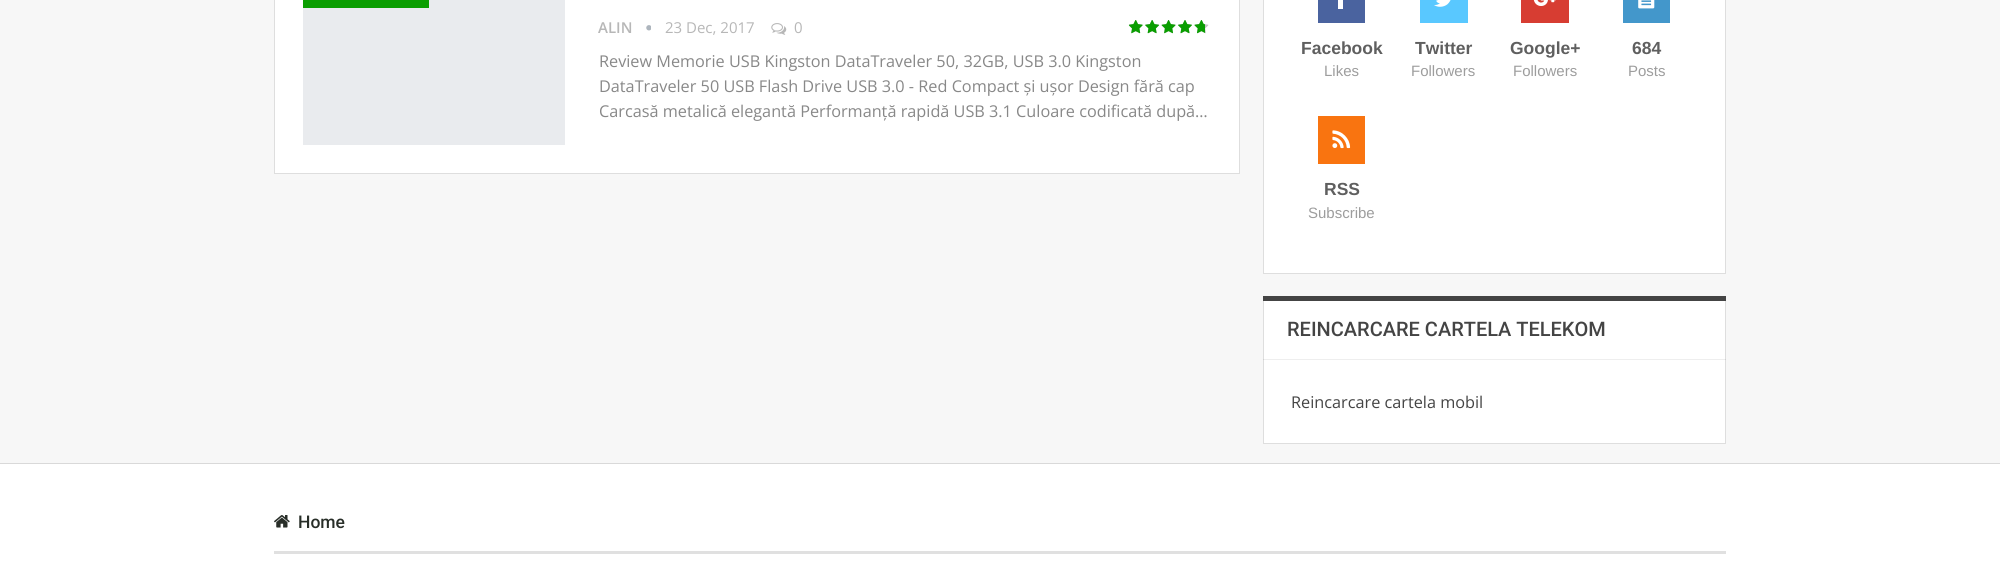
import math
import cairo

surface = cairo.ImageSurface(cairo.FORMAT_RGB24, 2000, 564)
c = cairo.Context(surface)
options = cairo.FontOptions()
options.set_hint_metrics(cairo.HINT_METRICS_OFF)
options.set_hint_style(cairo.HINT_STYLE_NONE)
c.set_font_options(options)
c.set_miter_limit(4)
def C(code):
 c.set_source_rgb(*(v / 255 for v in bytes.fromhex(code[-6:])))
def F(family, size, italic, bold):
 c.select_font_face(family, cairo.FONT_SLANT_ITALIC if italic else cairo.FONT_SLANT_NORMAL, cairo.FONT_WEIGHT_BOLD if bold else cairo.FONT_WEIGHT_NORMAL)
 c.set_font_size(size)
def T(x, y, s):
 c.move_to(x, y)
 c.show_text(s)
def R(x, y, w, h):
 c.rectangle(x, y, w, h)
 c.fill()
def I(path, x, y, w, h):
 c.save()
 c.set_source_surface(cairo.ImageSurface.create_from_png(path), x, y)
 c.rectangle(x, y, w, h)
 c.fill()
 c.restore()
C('f7f7f7')
c.paint()
C('ffffff')
c.rectangle(274.5,-.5,965,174)
c.fill_preserve()
C('dedede')
c.set_line_width(1)
c.stroke()
C('e9ebee')
R(303,0,262,145)
C('0a9e01')
R(303,0,126,8)
F('Open Sans SemiBold',15,0,0)
C('b7b7b7')
T(598,33,'ALIN')
I('1.png',646,25,5,6)
F('Open Sans',15,0,0)
T(665,33,'23 Dec, 2017')
I('2.png',771,23,16,12)
T(794,33,'0')
I('3.png',1128,20,81,14)
I('4.png',1129,20,76,14)
F('Open Sans',16.25,0,0)
C('888888')
T(599,67,'Review Memorie USB Kingston DataTraveler 50, 32GB, USB 3.0 Kingston')
T(599,92,'DataTraveler 50 USB Flash Drive USB 3.0 - Red Compact și ușor Design fără cap')
T(599,117,'Carcasă metalică elegantă Performanță rapidă USB 3.1 Culoare codificată după…')
C('ffffff')
c.rectangle(1263.5,-.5,462,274)
c.fill_preserve()
C('dedede')
c.stroke()
C('4a639f')
R(1318,0,47,23)
C('ffffff')
R(1338,0,5,9)
F('Liberation Sans',17.5,0,1)
C('5f5f5f')
T(1301,54,'Facebook')
F('Liberation Sans',15,0,0)
C('9d9d9d')
T(1324,76,'Likes')
C('59c8ff')
R(1420,0,48,23)
I('5.png',1434,0,17,7)
F('Liberation Sans',17.5,0,1)
C('5f5f5f')
T(1415,54,'Twitter')
F('Liberation Sans',15,0,0)
C('9d9d9d')
T(1411,76,'Followers')
C('d73d32')
R(1521,0,48,23)
I('6.png',1533,0,23,6)
F('Liberation Sans',17.5,0,1)
C('5f5f5f')
T(1510,54,'Google+')
F('Liberation Sans',15,0,0)
C('9d9d9d')
T(1513,76,'Followers')
C('4397cb')
R(1623,0,47,23)
I('7.png',1638,0,17,9)
F('Liberation Sans',17.5,0,1)
C('5f5f5f')
T(1632,54,'684')
F('Liberation Sans',15,0,0)
C('9d9d9d')
T(1628,76,'Posts')
C('f97410')
R(1318,116,47,48)
I('8.png',1332,130,19,19)
F('Liberation Sans',17.5,0,1)
C('5f5f5f')
T(1324,195,'RSS')
F('Liberation Sans',15,0,0)
C('9d9d9d')
T(1308,218,'Subscribe')
C('ffffff')
R(1264,301,461,142)
c.rectangle(1263.5,296.5,462,147)
C('dedede')
c.stroke()
C('444444')
R(1263,296,463,5)
F('Roboto Medium',20,0,0)
T(1287,336,'REINCARCARE CARTELA TELEKOM')
c.set_source_rgba(0,0,0,0.07)
R(1263,359,463,1)
F('Open Sans',16.25,0,0)
C('444444')
T(1291,408,'Reincarcare cartela mobil')
C('ffffff')
R(0,464,2000,100)
C('d9d9d9')
R(0,463,2000,1)
C('e0e0e0')
R(274,551,1452,3)
I('9.png',274,515,16,13)
F('Roboto Medium',17.5,0,0)
C('282e28')
T(298,528,'Home')
surface.write_to_png('o.png')
